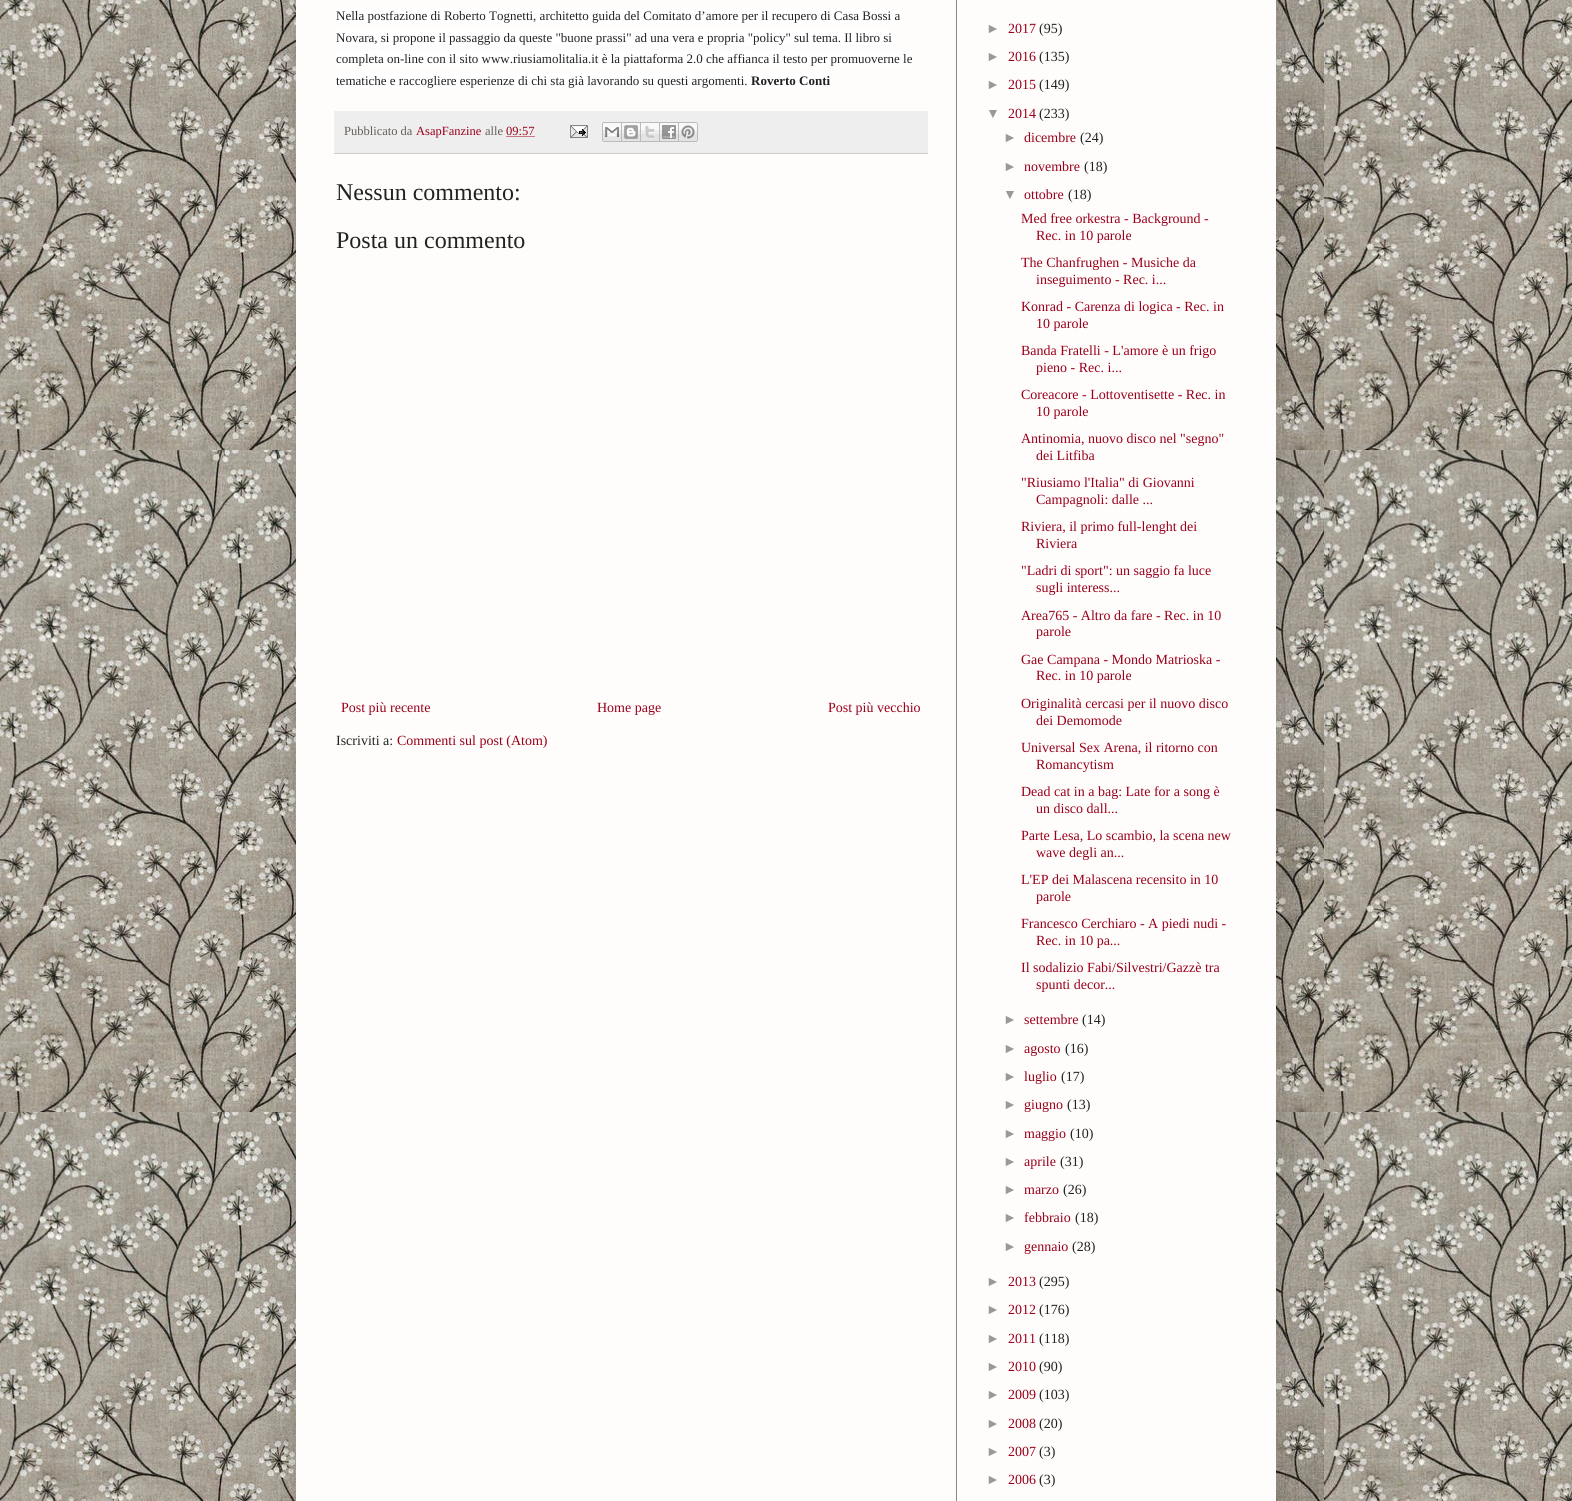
import math
import cairo

surface = cairo.ImageSurface(cairo.FORMAT_RGB24, 1572, 1501)
c = cairo.Context(surface)
options = cairo.FontOptions()
options.set_hint_metrics(cairo.HINT_METRICS_OFF)
options.set_hint_style(cairo.HINT_STYLE_NONE)
c.set_font_options(options)
c.set_miter_limit(4)
def C(code):
 c.set_source_rgb(*(v / 255 for v in bytes.fromhex(code[-6:])))
def F(family, size, italic, bold):
 c.select_font_face(family, cairo.FONT_SLANT_ITALIC if italic else cairo.FONT_SLANT_NORMAL, cairo.FONT_WEIGHT_BOLD if bold else cairo.FONT_WEIGHT_NORMAL)
 c.set_font_size(size)
def T(x, y, s):
 c.move_to(x, y)
 c.show_text(s)
def R(x, y, w, h):
 c.rectangle(x, y, w, h)
 c.fill()
def Q(x, y, w, h, r):
 c.new_sub_path()
 for i, (u, v) in enumerate([(x + w - r, y + h - r), (x + r, y + h - r), (x + r, y + r), (x + w - r, y + r)]):
  c.arc(u, v, r, i * math.pi / 2, (i + 1) * math.pi / 2)
 c.close_path()
def S(x, y, w, h, r, blur, alpha):
 c.push_group_with_content(cairo.CONTENT_ALPHA)
 c.set_operator(cairo.OPERATOR_SOURCE)
 for i in range(15, -16, -2):
  e = blur * i / 6
  if min(w, h) + 2 * e > 0:
   c.set_source_rgba(0, 0, 0, alpha * math.erfc((i - 1) / 8.5) / 2)
   Q(x - e, y - e, w + 2 * e, h + 2 * e, max(0, min(r + e + blur * .6, min(w, h) / 2 + e)))
   c.fill()
 c.mask(c.pop_group())
def I(path, x, y, w, h):
 c.save()
 c.set_source_surface(cairo.ImageSurface.create_from_png(path), x, y)
 c.rectangle(x, y, w, h)
 c.fill()
 c.restore()
C('ffffff')
c.paint()
I('1.png',0,0,1572,1501)
C('000000')
S(296,-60,980,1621,0,20,.15)
C('fefdfc')
R(296,0,980,1501)
C('888888')
R(956,0,1,1501)
C('ffffff')
R(336,8,564,15)
F('Liberation Serif',13,0,0)
C('222222')
T(336,20,'Nella postfazione di Roberto Tognetti, architetto guida del Comitato d’amore per il recupero di Casa Bossi a')
C('ffffff')
R(336,30,556,15)
C('222222')
T(336,42,'Novara, si propone il passaggio da queste "buone prassi" ad una vera e propria "policy" sul tema. Il libro si')
C('ffffff')
R(336,51,577,15)
C('222222')
T(336,63,'completa on-line con il sito www.riusiamolitalia.it è la piattaforma 2.0 che affianca il testo per promuoverne le')
C('ffffff')
R(336,73,494,15)
C('222222')
T(336,85,'tematiche e raccogliere esperienze di chi sta già lavorando su questi argomenti.')
F('Liberation Serif',13,0,1)
T(751,85,'Roverto Conti')
C('eeeeee')
R(334,111,594,42)
C('cccccc')
R(334,153,594,1)
F('Liberation Serif',12.5,0,0)
C('665c55')
T(344,135,'Pubblicato da')
C('990019')
T(416,135,'AsapFanzine')
C('665c55')
T(485,135,'alle')
C('990019')
T(506,135,'09:57')
c.new_path()
c.move_to(506.5,136.5)
c.line_to(535,136.5)
c.set_line_width(1)
c.set_dash([1,1])
c.stroke()
I('2.png',570,125,18,13)
I('3.png',602,122,20,20)
I('4.png',622,122,19,20)
I('5.png',641,122,19,20)
I('6.png',660,122,19,20)
I('7.png',679,122,19,20)
F('Liberation Serif',24,0,0)
C('222222')
T(336,200,'Nessun commento:')
T(336,248,'Posta un commento')
F('Liberation Serif',14,0,0)
C('990019')
T(341,712,'Post più recente')
T(597,712,'Home page')
T(828,712,'Post più vecchio')
C('222222')
T(336,745,'Iscriviti a:')
C('990019')
T(397,745,'Commenti sul post (Atom)')
F('Liberation Sans',14,0,0)
C('999999')
T(986,33,'►')
F('Liberation Serif',14,0,0)
C('990019')
T(1008,33,'2017')
C('222222')
T(1039,33,'(95)')
F('Liberation Sans',14,0,0)
C('999999')
T(986,61,'►')
F('Liberation Serif',14,0,0)
C('990019')
T(1008,61,'2016')
C('222222')
T(1039,61,'(135)')
F('Liberation Sans',14,0,0)
C('999999')
T(986,89,'►')
F('Liberation Serif',14,0,0)
C('990019')
T(1008,89,'2015')
C('222222')
T(1039,89,'(149)')
F('Liberation Sans',14,0,0)
C('999999')
T(986,118,'▼')
F('Liberation Serif',14,0,0)
C('990019')
T(1008,118,'2014')
C('222222')
T(1039,118,'(233)')
F('Liberation Sans',14,0,0)
C('999999')
T(1003,142,'►')
F('Liberation Serif',14,0,0)
C('990019')
T(1024,142,'dicembre')
C('222222')
T(1080,142,'(24)')
F('Liberation Sans',14,0,0)
C('999999')
T(1003,171,'►')
F('Liberation Serif',14,0,0)
C('990019')
T(1024,171,'novembre')
C('222222')
T(1084,171,'(18)')
F('Liberation Sans',14,0,0)
C('999999')
T(1003,199,'▼')
F('Liberation Serif',14,0,0)
C('990019')
T(1024,199,'ottobre')
C('222222')
T(1068,199,'(18)')
C('990019')
T(1021,223,'Med free orkestra - Background -')
T(1036,240,'Rec. in 10 parole')
T(1021,267,'The Chanfrughen - Musiche da')
T(1036,284,'inseguimento - Rec. i...')
T(1021,311,'Konrad - Carenza di logica - Rec. in')
T(1036,328,'10 parole')
T(1021,355,'Banda Fratelli - L\'amore è un frigo')
T(1036,372,'pieno - Rec. i...')
T(1021,399,'Coreacore - Lottoventisette - Rec. in')
T(1036,416,'10 parole')
T(1021,443,'Antinomia, nuovo disco nel "segno"')
T(1036,460,'dei Litfiba')
T(1021,487,'"Riusiamo l\'Italia" di Giovanni')
T(1036,504,'Campagnoli: dalle ...')
T(1021,531,'Riviera, il primo full-lenght dei')
T(1036,548,'Riviera')
T(1021,575,'"Ladri di sport": un saggio fa luce')
T(1036,592,'sugli interess...')
T(1021,620,'Area765 - Altro da fare - Rec. in 10')
T(1036,636,'parole')
T(1021,664,'Gae Campana - Mondo Matrioska -')
T(1036,680,'Rec. in 10 parole')
T(1021,708,'Originalità cercasi per il nuovo disco')
T(1036,725,'dei Demomode')
T(1021,752,'Universal Sex Arena, il ritorno con')
T(1036,769,'Romancytism')
T(1021,796,'Dead cat in a bag: Late for a song è')
T(1036,813,'un disco dall...')
T(1021,840,'Parte Lesa, Lo scambio, la scena new')
T(1036,857,'wave degli an...')
T(1021,884,'L\'EP dei Malascena recensito in 10')
T(1036,901,'parole')
T(1021,928,'Francesco Cerchiaro - A piedi nudi -')
T(1036,945,'Rec. in 10 pa...')
T(1021,972,'Il sodalizio Fabi/Silvestri/Gazzè tra')
T(1036,989,'spunti decor...')
F('Liberation Sans',14,0,0)
C('999999')
T(1003,1024,'►')
F('Liberation Serif',14,0,0)
C('990019')
T(1024,1024,'settembre')
C('222222')
T(1082,1024,'(14)')
F('Liberation Sans',14,0,0)
C('999999')
T(1003,1053,'►')
F('Liberation Serif',14,0,0)
C('990019')
T(1024,1053,'agosto')
C('222222')
T(1065,1053,'(16)')
F('Liberation Sans',14,0,0)
C('999999')
T(1003,1081,'►')
F('Liberation Serif',14,0,0)
C('990019')
T(1024,1081,'luglio')
C('222222')
T(1061,1081,'(17)')
F('Liberation Sans',14,0,0)
C('999999')
T(1003,1109,'►')
F('Liberation Serif',14,0,0)
C('990019')
T(1024,1109,'giugno')
C('222222')
T(1067,1109,'(13)')
F('Liberation Sans',14,0,0)
C('999999')
T(1003,1138,'►')
F('Liberation Serif',14,0,0)
C('990019')
T(1024,1138,'maggio')
C('222222')
T(1070,1138,'(10)')
F('Liberation Sans',14,0,0)
C('999999')
T(1003,1166,'►')
F('Liberation Serif',14,0,0)
C('990019')
T(1024,1166,'aprile')
C('222222')
T(1060,1166,'(31)')
F('Liberation Sans',14,0,0)
C('999999')
T(1003,1194,'►')
F('Liberation Serif',14,0,0)
C('990019')
T(1024,1194,'marzo')
C('222222')
T(1063,1194,'(26)')
F('Liberation Sans',14,0,0)
C('999999')
T(1003,1222,'►')
F('Liberation Serif',14,0,0)
C('990019')
T(1024,1222,'febbraio')
C('222222')
T(1075,1222,'(18)')
F('Liberation Sans',14,0,0)
C('999999')
T(1003,1251,'►')
F('Liberation Serif',14,0,0)
C('990019')
T(1024,1251,'gennaio')
C('222222')
T(1072,1251,'(28)')
F('Liberation Sans',14,0,0)
C('999999')
T(986,1286,'►')
F('Liberation Serif',14,0,0)
C('990019')
T(1008,1286,'2013')
C('222222')
T(1039,1286,'(295)')
F('Liberation Sans',14,0,0)
C('999999')
T(986,1314,'►')
F('Liberation Serif',14,0,0)
C('990019')
T(1008,1314,'2012')
C('222222')
T(1039,1314,'(176)')
F('Liberation Sans',14,0,0)
C('999999')
T(986,1343,'►')
F('Liberation Serif',14,0,0)
C('990019')
T(1008,1343,'2011')
C('222222')
T(1039,1343,'(118)')
F('Liberation Sans',14,0,0)
C('999999')
T(986,1371,'►')
F('Liberation Serif',14,0,0)
C('990019')
T(1008,1371,'2010')
C('222222')
T(1039,1371,'(90)')
F('Liberation Sans',14,0,0)
C('999999')
T(986,1399,'►')
F('Liberation Serif',14,0,0)
C('990019')
T(1008,1399,'2009')
C('222222')
T(1039,1399,'(103)')
F('Liberation Sans',14,0,0)
C('999999')
T(986,1428,'►')
F('Liberation Serif',14,0,0)
C('990019')
T(1008,1428,'2008')
C('222222')
T(1039,1428,'(20)')
F('Liberation Sans',14,0,0)
C('999999')
T(986,1456,'►')
F('Liberation Serif',14,0,0)
C('990019')
T(1008,1456,'2007')
C('222222')
T(1039,1456,'(3)')
F('Liberation Sans',14,0,0)
C('999999')
T(986,1484,'►')
F('Liberation Serif',14,0,0)
C('990019')
T(1008,1484,'2006')
C('222222')
T(1039,1484,'(3)')
surface.write_to_png('o.png')
